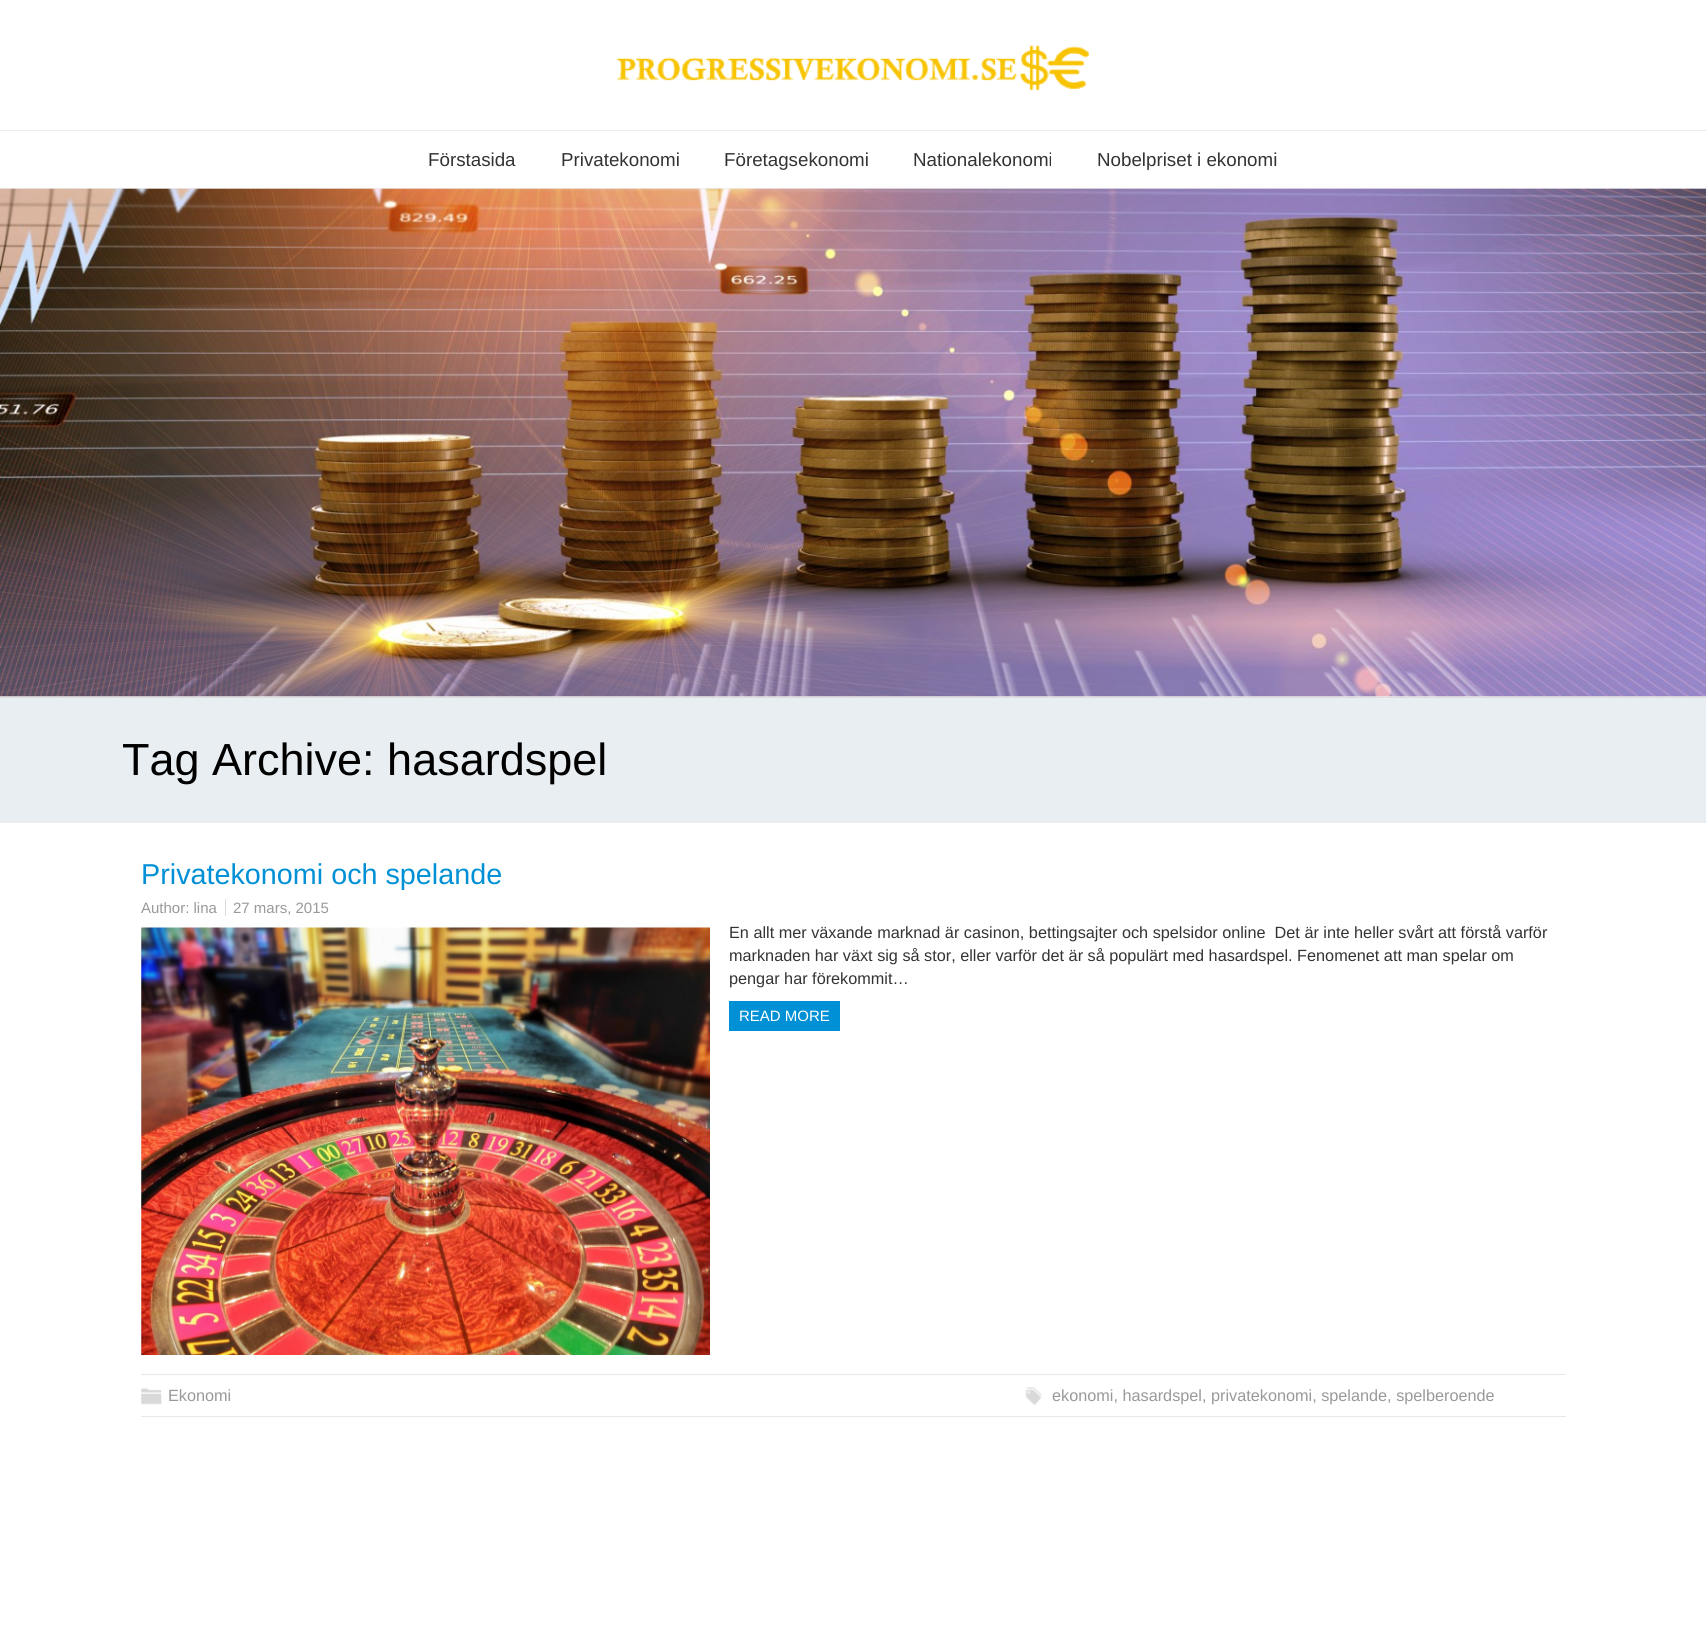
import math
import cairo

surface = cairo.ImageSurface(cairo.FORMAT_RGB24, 1706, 1644)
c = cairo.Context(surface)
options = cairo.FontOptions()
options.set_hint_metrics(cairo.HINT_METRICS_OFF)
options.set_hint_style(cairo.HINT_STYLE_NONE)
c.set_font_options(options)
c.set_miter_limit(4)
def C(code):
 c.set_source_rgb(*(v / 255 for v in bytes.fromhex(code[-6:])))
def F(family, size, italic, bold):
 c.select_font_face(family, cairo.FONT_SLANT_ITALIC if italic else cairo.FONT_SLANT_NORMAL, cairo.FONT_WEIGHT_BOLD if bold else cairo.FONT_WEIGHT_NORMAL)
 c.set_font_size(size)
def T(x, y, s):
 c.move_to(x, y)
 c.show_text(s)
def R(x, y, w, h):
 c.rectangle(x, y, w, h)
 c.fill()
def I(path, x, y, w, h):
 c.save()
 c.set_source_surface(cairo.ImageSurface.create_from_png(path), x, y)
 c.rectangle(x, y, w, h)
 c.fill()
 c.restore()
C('ffffff')
c.paint()
C('ebebeb')
R(0,130,1706,1)
I('1.png',617,45,472,46)
R(0,188,1706,1)
F('Liberation Sans',18.75,0,0)
C('333333')
T(428,166,'Förstasida')
T(561,166,'Privatekonomi')
T(724,166,'Företagsekonomi')
T(913,166,'Nationalekonomi')
T(1097,166,'Nobelpriset i ekonomi')
C('dddddd')
R(0,697,1706,1)
C('ebebeb')
R(0,696,1706,1)
I('2.png',0,188,1706,509)
C('e8eef1')
R(0,698,1706,125)
C('ebebeb')
R(0,821,1706,1)
F('Liberation Sans',45,0,0)
C('000000')
T(122,775,'Tag Archive: hasardspel')
C('e8e8e8')
R(141,1416,1425,1)
F('Liberation Sans',28.75,0,0)
C('0090d5')
T(141,884,'Privatekonomi och spelande')
F('Liberation Sans',15,0,0)
C('999999')
T(141,913,'Author: lina')
T(233,913,'27 mars, 2015')
C('dbdbdb')
R(225,899,1,17)
I('3.png',141,927,569,428)
F('Liberation Sans',16.25,0,0)
C('333333')
T(729,938,'En allt mer växande marknad är casinon, bettingsajter och spelsidor online  Det är inte heller svårt att förstå varför')
T(729,961,'marknaden har växt sig så stor, eller varför det är så populärt med hasardspel. Fenomenet att man spelar om')
T(729,984,'pengar har förekommit…')
C('0090d5')
R(729,1001,111,30)
F('Liberation Sans',15,0,0)
C('ffffff')
T(739,1021,'READ MORE')
C('e8e8e8')
R(141,1374,1425,1)
I('4.png',141,1387,21,18)
F('Liberation Sans',16.25,0,0)
C('999999')
T(168,1401,'Ekonomi')
I('5.png',1025,1387,17,19)
T(1052,1401,'ekonomi, hasardspel, privatekonomi, spelande, spelberoende')
surface.write_to_png('o.png')
